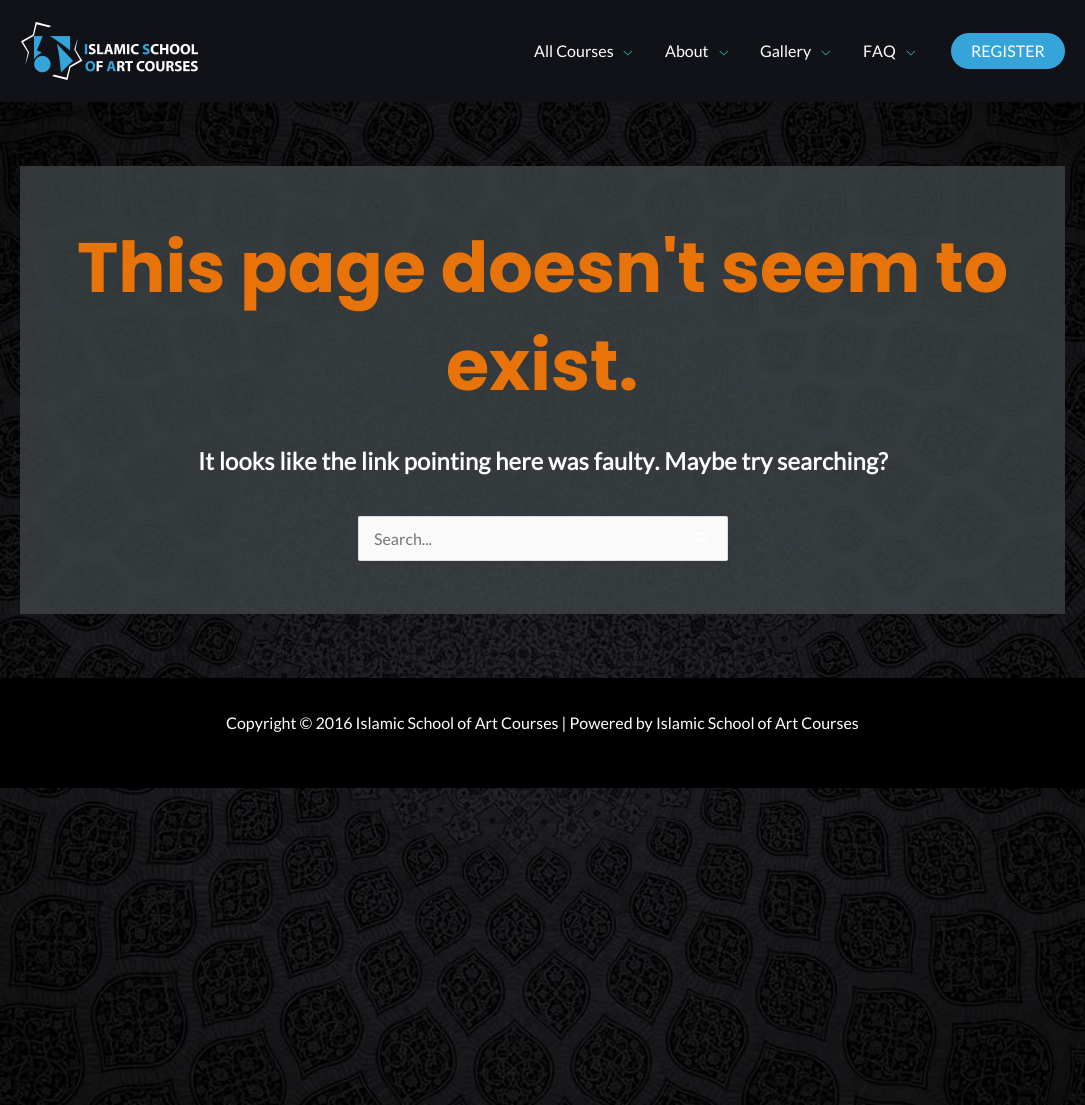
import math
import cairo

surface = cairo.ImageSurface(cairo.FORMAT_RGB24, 1085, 1105)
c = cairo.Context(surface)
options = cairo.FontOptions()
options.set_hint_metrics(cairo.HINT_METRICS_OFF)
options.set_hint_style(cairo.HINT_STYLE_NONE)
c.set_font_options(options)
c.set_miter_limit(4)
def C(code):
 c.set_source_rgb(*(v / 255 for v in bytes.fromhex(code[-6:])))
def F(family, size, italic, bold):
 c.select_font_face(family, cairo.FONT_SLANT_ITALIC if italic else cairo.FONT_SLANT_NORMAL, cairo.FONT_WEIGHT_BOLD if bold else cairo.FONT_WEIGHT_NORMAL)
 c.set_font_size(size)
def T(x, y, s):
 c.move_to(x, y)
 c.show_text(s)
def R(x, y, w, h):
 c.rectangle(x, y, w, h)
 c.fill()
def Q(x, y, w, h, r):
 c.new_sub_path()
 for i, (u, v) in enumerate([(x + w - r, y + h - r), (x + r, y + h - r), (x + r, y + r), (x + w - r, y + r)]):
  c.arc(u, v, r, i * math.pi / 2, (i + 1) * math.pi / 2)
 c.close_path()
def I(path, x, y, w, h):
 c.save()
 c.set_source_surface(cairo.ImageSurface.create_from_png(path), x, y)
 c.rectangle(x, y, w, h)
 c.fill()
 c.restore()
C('ffffff')
c.paint()
I('1.png',0,102,1085,1003)
C('101218')
R(0,0,1085,102)
I('2.png',21,22,177,58)
F('Lato',16,0,0)
C('ffffff')
T(534,57,'All Courses')
I('3.png',623,50,9,6)
T(665,57,'About')
I('3.png',719,50,9,6)
T(760,57,'Gallery')
I('3.png',821,50,9,6)
T(863,57,'FAQ')
I('3.png',906,50,9,6)
C('35a4db')
Q(951,33,114,36,18)
c.fill()
C('ffffff')
T(971,57,'REGISTER')
c.set_source_rgba(0.235,0.263,0.271,0.83)
R(20,166,1045,448)
F('Poppins',70,0,1)
C('e87409')
T(77,292,'This page doesn\'t seem to')
T(446,390,'exist.')
F('Lato',24,0,1)
C('ffffff')
T(198,470,'It looks like the link pointing here was faulty. Maybe try searching?')
C('fafafa')
Q(358.5,516.5,369,44,1.5)
c.fill_preserve()
C('dddddd')
c.set_line_width(1)
c.stroke()
F('Lato',16,0,0)
C('757575')
T(374,545,'Search...')
I('4.png',696,532,13,13)
C('000000')
R(0,678,1085,110)
C('ffffff')
T(226,729,'Copyright © 2016 Islamic School of Art Courses | Powered by Islamic School of Art Courses')
surface.write_to_png('o.png')
